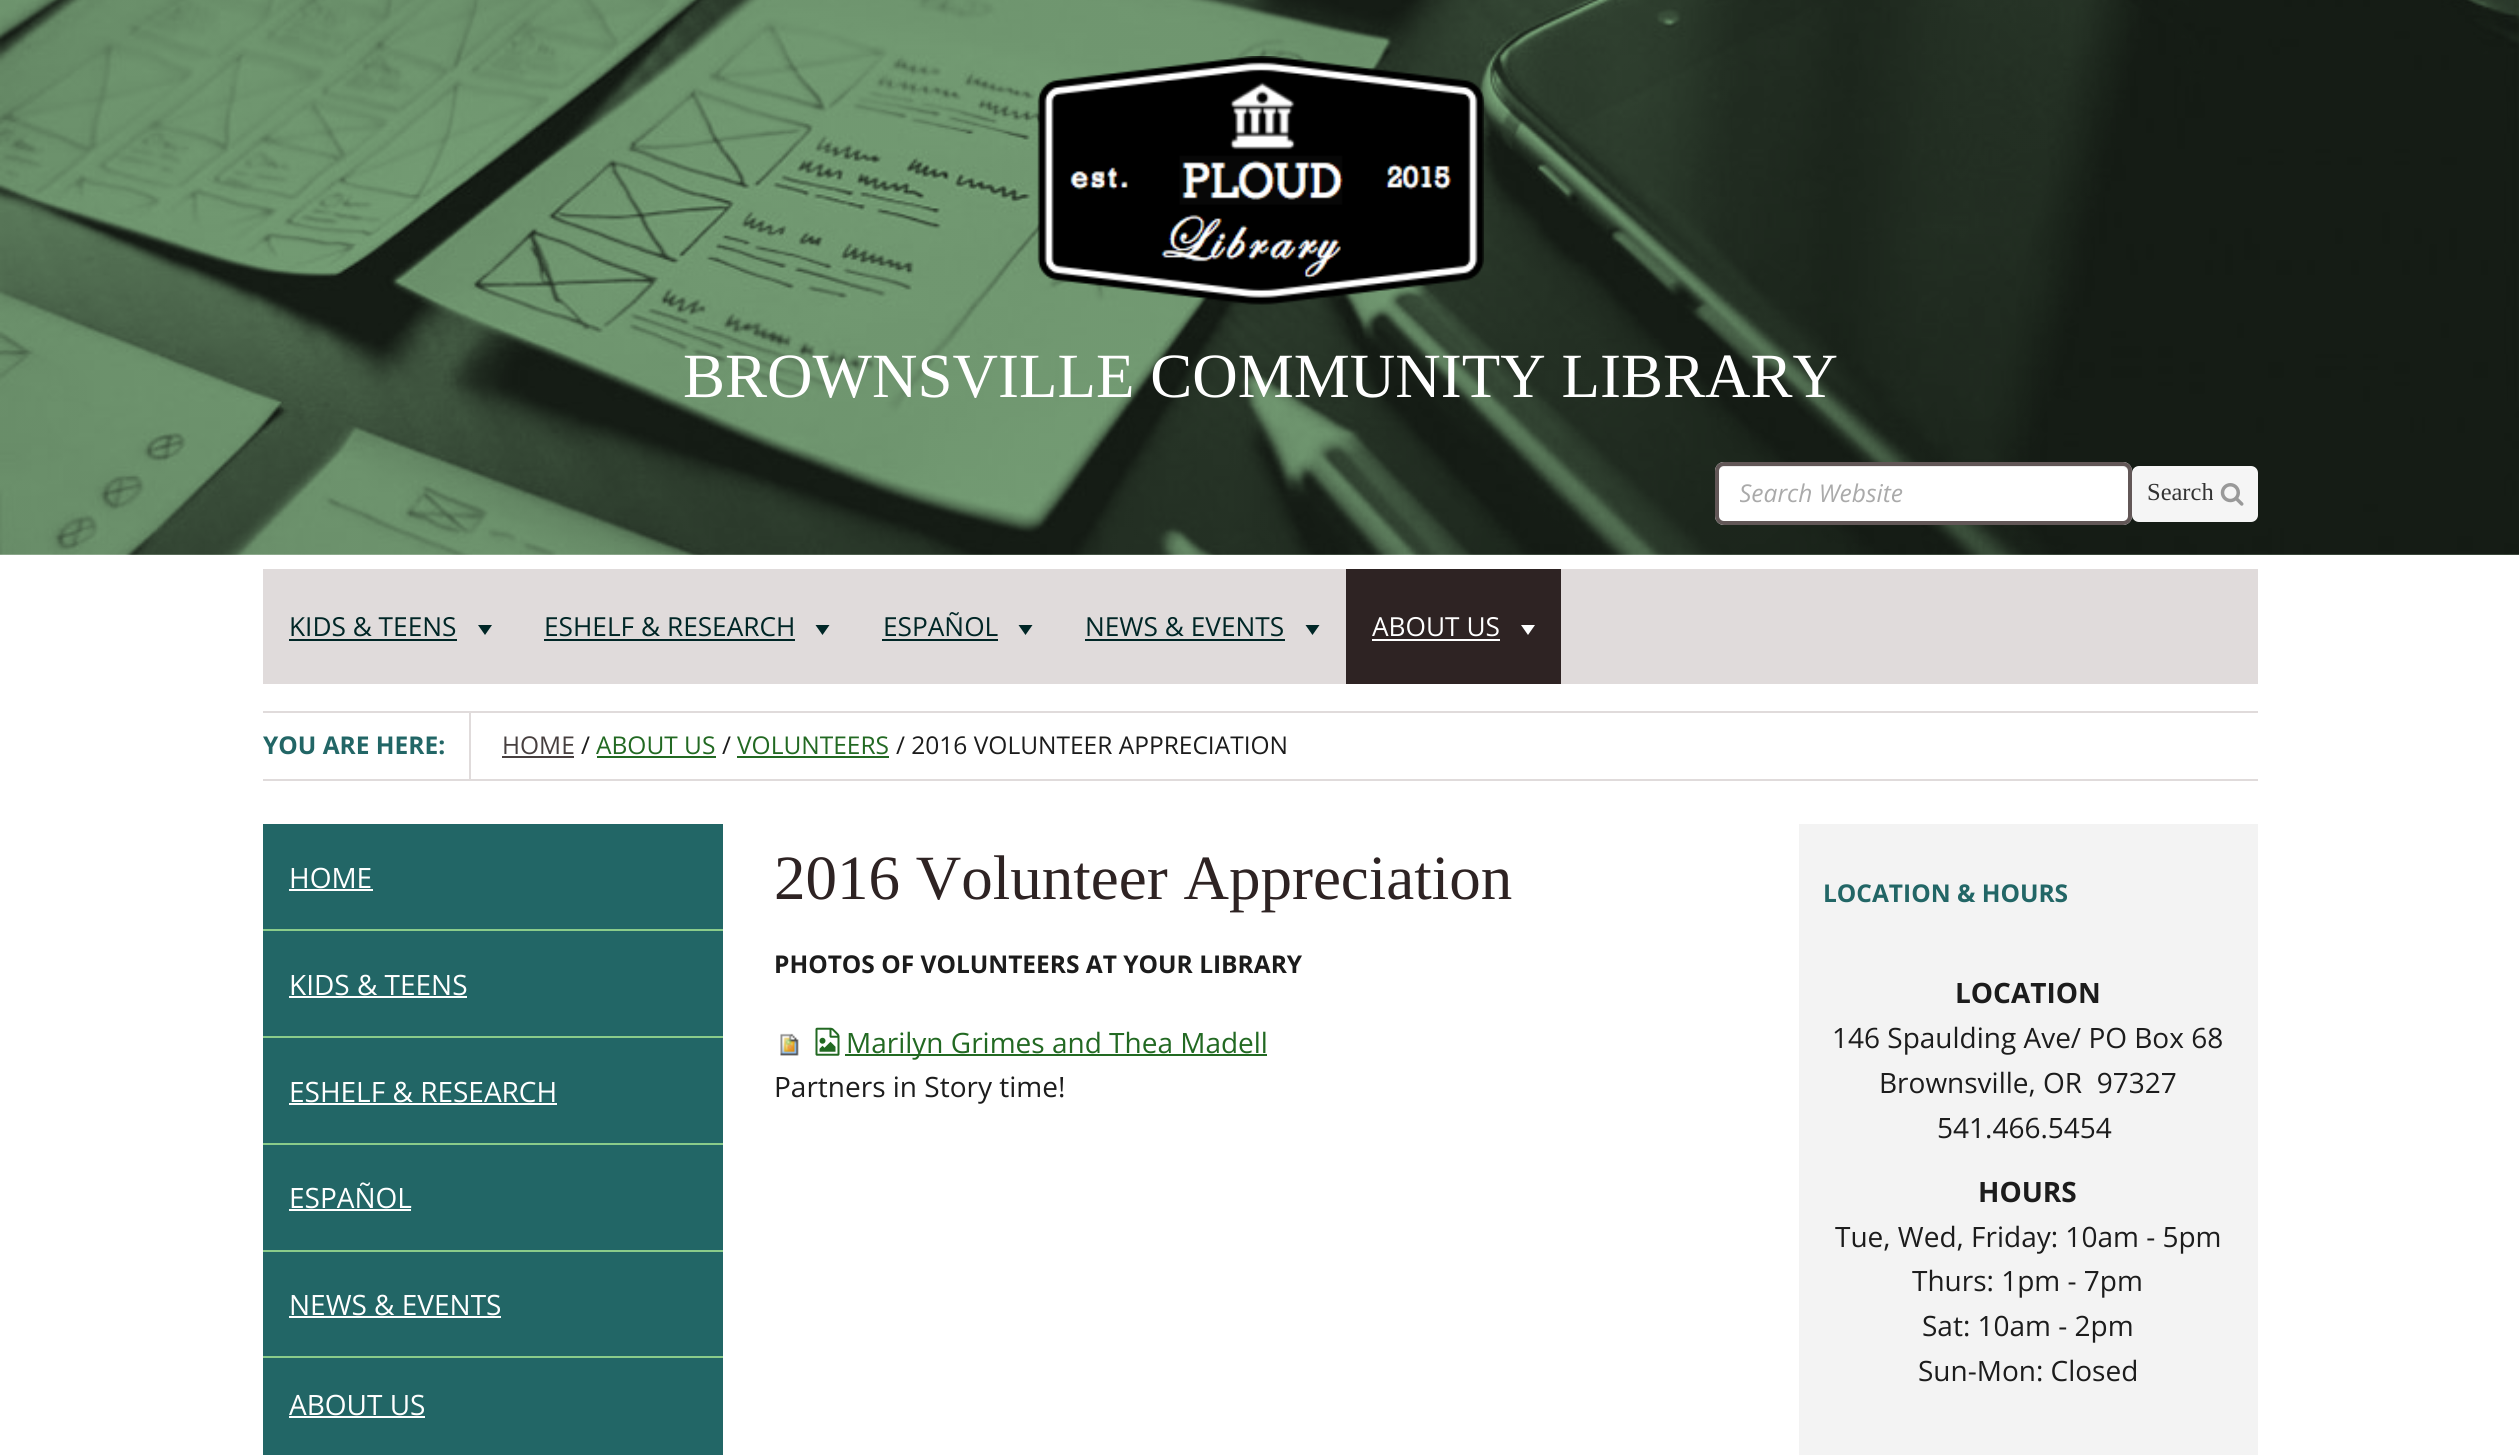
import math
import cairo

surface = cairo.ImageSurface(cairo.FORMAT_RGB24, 2519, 1455)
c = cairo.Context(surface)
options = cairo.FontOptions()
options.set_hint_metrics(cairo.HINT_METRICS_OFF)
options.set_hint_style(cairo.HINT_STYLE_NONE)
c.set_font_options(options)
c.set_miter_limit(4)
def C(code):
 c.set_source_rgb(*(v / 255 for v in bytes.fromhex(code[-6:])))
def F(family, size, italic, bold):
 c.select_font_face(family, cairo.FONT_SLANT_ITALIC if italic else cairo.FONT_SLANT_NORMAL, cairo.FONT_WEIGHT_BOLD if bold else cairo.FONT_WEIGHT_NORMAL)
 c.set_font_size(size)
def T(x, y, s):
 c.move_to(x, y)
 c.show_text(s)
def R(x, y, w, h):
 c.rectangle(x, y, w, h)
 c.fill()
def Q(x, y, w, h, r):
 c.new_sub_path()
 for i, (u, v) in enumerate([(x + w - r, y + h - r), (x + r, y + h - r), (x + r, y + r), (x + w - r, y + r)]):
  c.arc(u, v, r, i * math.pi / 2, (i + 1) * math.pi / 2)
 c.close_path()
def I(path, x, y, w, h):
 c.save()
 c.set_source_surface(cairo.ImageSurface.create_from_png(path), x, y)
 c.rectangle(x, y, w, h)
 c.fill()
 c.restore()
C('ffffff')
c.paint()
I('1.png',0,0,2519,555)
I('2.png',1037,56,447,249)
F('Liberation Serif',63,0,0)
C('ffffff')
T(683,397,'BROWNSVILLE COMMUNITY LIBRARY')
Q(1715,462,417,63,9)
c.fill()
C('ececec')
c.new_path()
c.move_to(1724,467)
c.line_to(2123,467)
c.curve_to(2126,467,2128,470,2128,472)
c.line_to(2128,471)
c.curve_to(2128,468,2126,466,2123,466)
c.line_to(1724,466)
c.curve_to(1722,466,1720,467,1719,469)
c.curve_to(1720,468,1722,467,1724,467)
c.close_path()
c.fill()
Q(1717,464,413,59,7)
C('625757')
c.set_line_width(4)
c.stroke()
c.save()
c.rectangle(1740,476,309,33)
c.clip()
F('Open Sans',24.5,1,0)
C('aaaaaa')
T(1739,502,'Search Website')
c.restore()
C('f5f5f5')
Q(2132,466,126,56,7)
c.fill()
C('f7f7f7')
c.new_path()
c.move_to(2138,469)
c.line_to(2250,469)
c.curve_to(2253,469,2256,471,2256,474)
c.line_to(2256,472)
c.curve_to(2256,469,2254,467,2251,467)
c.line_to(2138,467)
c.curve_to(2135,467,2133,469,2133,472)
c.line_to(2133,474)
c.curve_to(2133,471,2136,469,2138,469)
c.close_path()
c.fill()
F('Liberation Serif',24.5,0,0)
C('333333')
T(2147,500,'Search')
I('3.png',2220,483,24,23)
C('e0dbdb')
R(263,569,1995,115)
F('Open Sans',26.25,0,0)
C('002626')
T(289,636,'KIDS & TEENS')
R(289,639,168,2)
c.new_path()
c.move_to(478,625)
c.line_to(492,625)
c.line_to(485,635)
c.close_path()
c.fill()
T(544,636,'ESHELF & RESEARCH')
R(544,639,251,2)
c.new_path()
c.move_to(815.5,625)
c.line_to(829.5,625)
c.line_to(822.5,635)
c.close_path()
c.fill()
T(883,636,'ESPAÑOL')
R(882,639,116,2)
c.new_path()
c.move_to(1018.5,625)
c.line_to(1032.5,625)
c.line_to(1025.5,635)
c.close_path()
c.fill()
T(1085,636,'NEWS & EVENTS')
R(1085,639,200,2)
c.new_path()
c.move_to(1305.5,625)
c.line_to(1319.5,625)
c.line_to(1312.5,635)
c.close_path()
c.fill()
C('2e2323')
R(1346,569,215,115)
C('ffffff')
T(1372,636,'ABOUT US')
R(1372,639,128,2)
c.new_path()
c.move_to(1521,625)
c.line_to(1535,625)
c.line_to(1528,635)
c.close_path()
c.fill()
C('e0dbdb')
R(263,711,1995,2)
R(263,779,1995,2)
R(469,712,2,67)
F('Open Sans',24.5,0,1)
C('226666')
T(263,754,'YOU ARE HERE:')
F('Open Sans',24.5,0,0)
C('473f3f')
T(502,754,'HOME')
R(502,756,72,2)
C('1c1c1c')
T(581,754,'/')
C('226922')
T(596,754,'ABOUT US')
R(597,756,119,2)
C('1c1c1c')
T(722,754,'/')
C('226922')
T(737,754,'VOLUNTEERS')
R(737,756,152,2)
C('1c1c1c')
T(896,754,'/ 2016 VOLUNTEER APPRECIATION')
C('226666')
R(263,824,460,631)
C('8acc8a')
R(263,929,460,2)
F('Open Sans',28,0,0)
C('ffffff')
T(289,888,'HOME')
R(289,889,84,2)
C('8acc8a')
R(263,1036,460,2)
C('ffffff')
T(289,995,'KIDS & TEENS')
R(289,996,178,2)
C('8acc8a')
R(263,1143,460,2)
C('ffffff')
T(289,1102,'ESHELF & RESEARCH')
R(289,1103,268,2)
C('8acc8a')
R(263,1250,460,2)
C('ffffff')
T(289,1208,'ESPAÑOL')
R(289,1209,122,2)
C('8acc8a')
R(263,1356,460,2)
C('ffffff')
T(289,1315,'NEWS & EVENTS')
R(289,1316,212,2)
T(289,1415,'ABOUT US')
R(289,1416,136,2)
F('Liberation Serif',63,0,0)
C('2e2323')
T(774,899,'2016 Volunteer Appreciation')
F('Open Sans',24.5,0,1)
C('1c1c1c')
T(774,973,'PHOTOS OF VOLUNTEERS AT YOUR LIBRARY')
I('4.png',780,1033,19,23)
I('5.png',815,1027,25,29)
C('226922')
R(845,1054,422,2)
F('Open Sans',28,0,0)
T(846,1053,'Marilyn Grimes and Thea Madell')
C('1c1c1c')
T(774,1097,'Partners in Story time!')
C('f3f3f3')
R(1799,824,459,631)
F('Open Sans',24.5,0,1)
C('226666')
T(1823,902,'LOCATION & HOURS')
F('Open Sans',28,0,1)
C('1c1c1c')
T(1955,1003,'LOCATION')
F('Open Sans',28,0,0)
T(1832,1048,'146 Spaulding Ave/ PO Box 68')
T(1879,1093,'Brownsville, OR  97327')
T(1937,1138,'541.466.5454')
F('Open Sans',28,0,1)
T(1978,1202,'HOURS')
F('Open Sans',28,0,0)
T(1835,1247,'Tue, Wed, Friday: 10am - 5pm')
T(1912,1291,'Thurs: 1pm - 7pm')
T(1922,1336,'Sat: 10am - 2pm')
T(1918,1381,'Sun-Mon: Closed')
surface.write_to_png('o.png')
